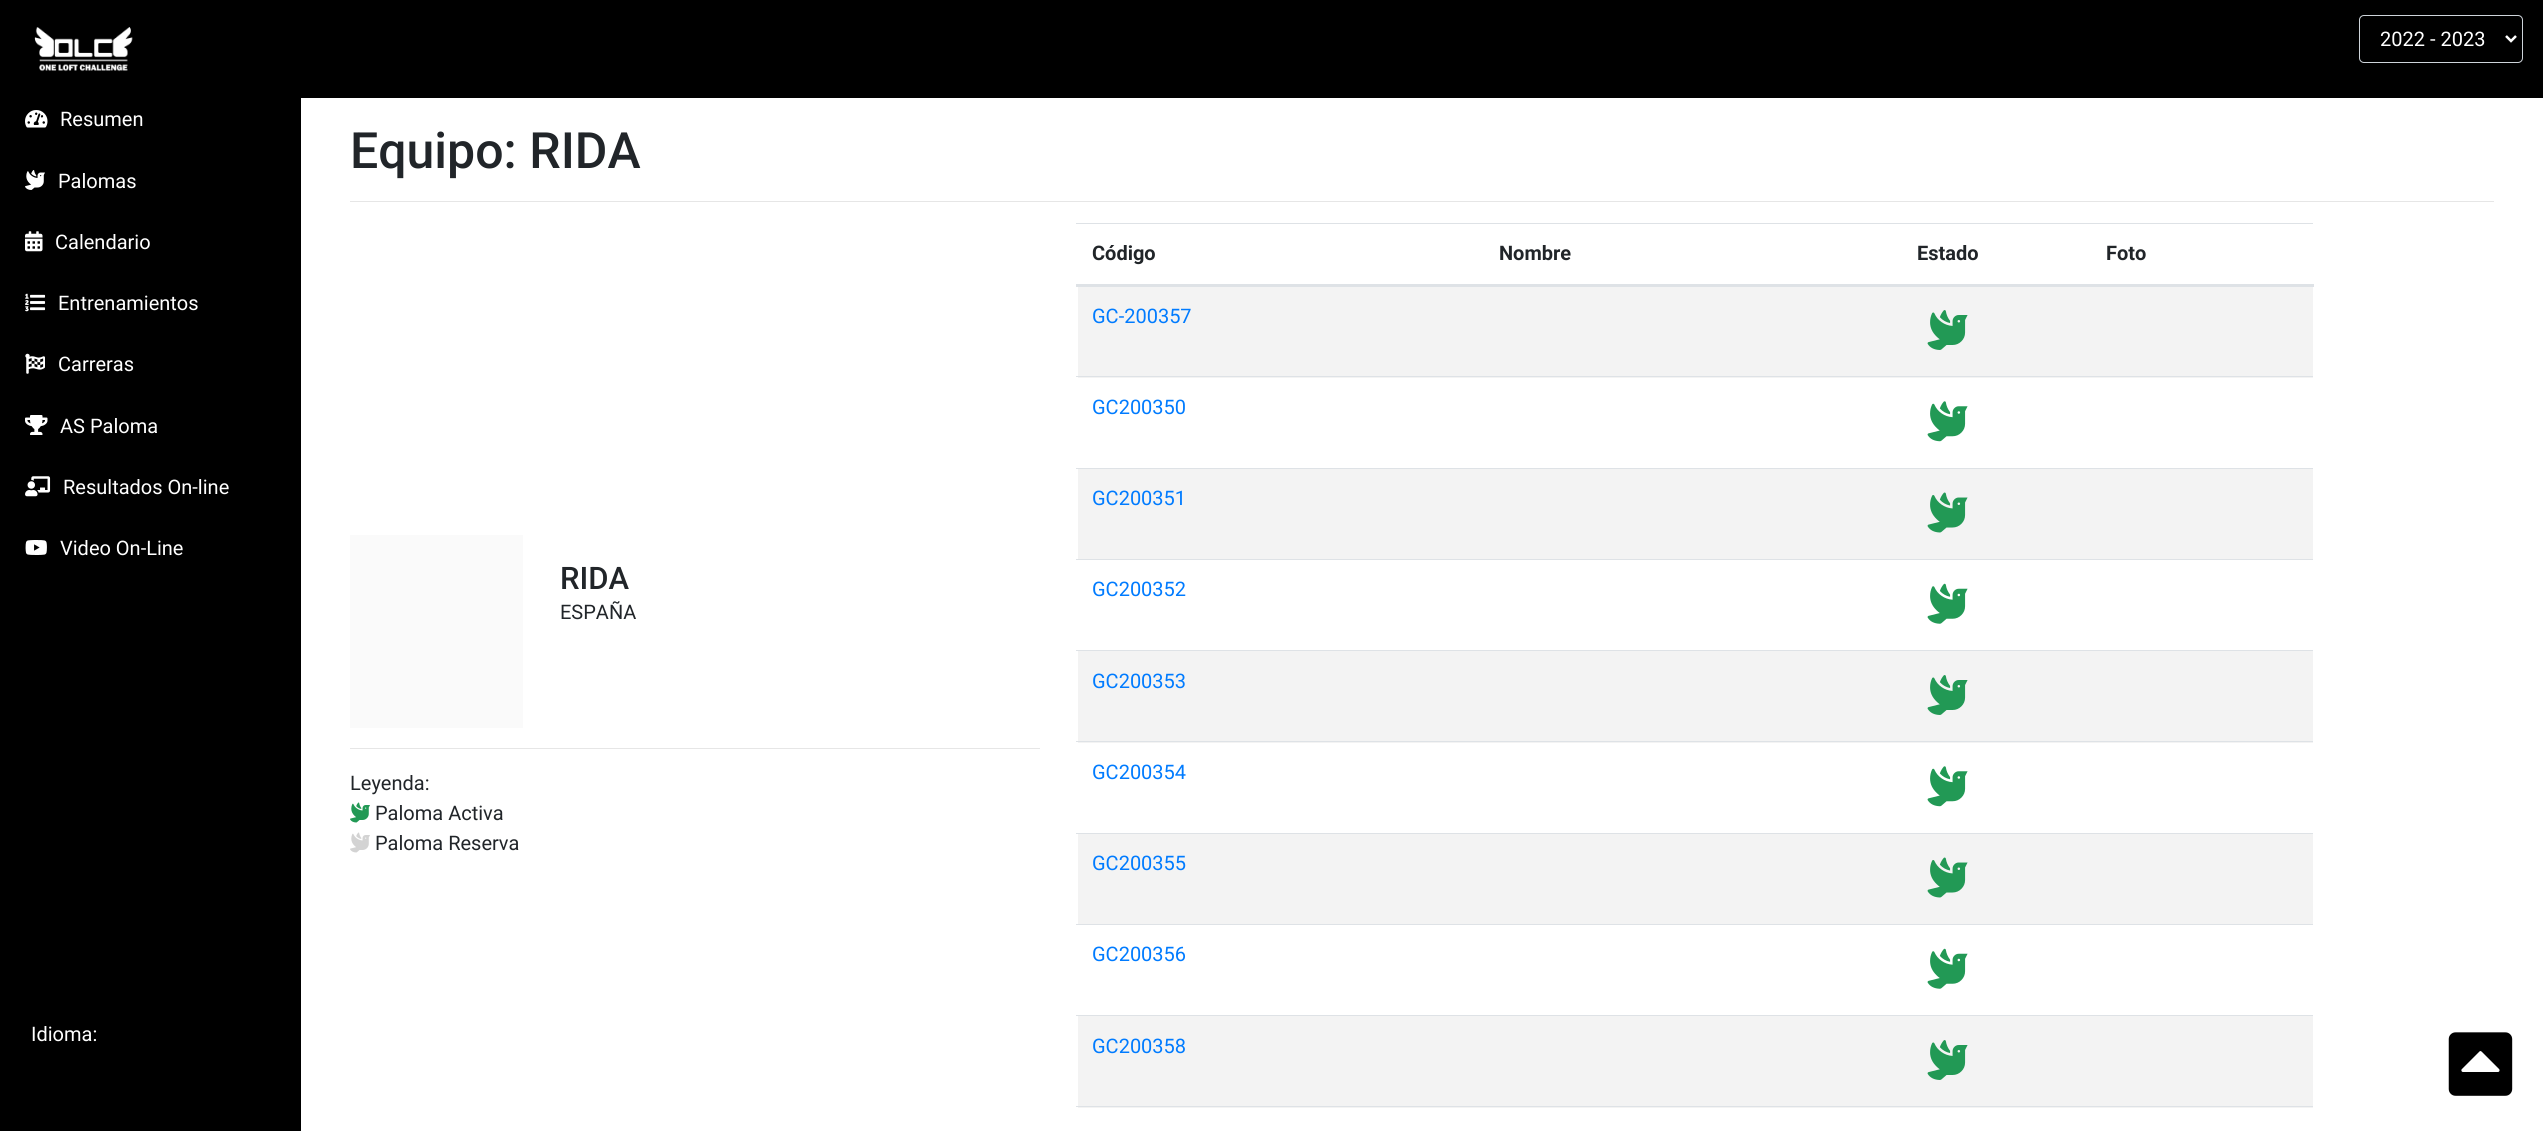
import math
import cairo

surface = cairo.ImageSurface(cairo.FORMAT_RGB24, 2543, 1131)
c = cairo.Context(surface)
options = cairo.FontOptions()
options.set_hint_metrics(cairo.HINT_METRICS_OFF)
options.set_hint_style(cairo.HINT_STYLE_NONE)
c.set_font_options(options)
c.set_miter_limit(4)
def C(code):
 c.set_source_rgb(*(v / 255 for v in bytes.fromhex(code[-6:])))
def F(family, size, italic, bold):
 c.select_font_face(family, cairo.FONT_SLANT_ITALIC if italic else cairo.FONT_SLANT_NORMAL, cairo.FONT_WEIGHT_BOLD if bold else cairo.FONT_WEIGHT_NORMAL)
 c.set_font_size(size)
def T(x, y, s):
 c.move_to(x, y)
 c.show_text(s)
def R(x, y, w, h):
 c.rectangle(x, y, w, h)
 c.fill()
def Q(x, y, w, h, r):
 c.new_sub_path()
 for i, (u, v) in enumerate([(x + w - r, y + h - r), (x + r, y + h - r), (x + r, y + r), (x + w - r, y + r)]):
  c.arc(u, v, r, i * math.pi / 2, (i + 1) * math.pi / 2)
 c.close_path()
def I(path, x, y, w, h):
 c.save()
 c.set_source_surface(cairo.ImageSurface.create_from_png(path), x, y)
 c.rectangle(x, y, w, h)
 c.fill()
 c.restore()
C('ffffff')
c.paint()
C('000000')
R(0,98,301,1033)
I('1.png',25,110,23,18)
F('Roboto',20,0,0)
C('ffffff')
T(60,126,'Resumen')
I('2.png',25,170,20,20)
T(58,188,'Palomas')
I('3.png',25,231,18,21)
T(55,249,'Calendario')
I('4.png',25,293,21,19)
T(58,310,'Entrenamientos')
I('5.png',25,353,20,21)
T(58,371,'Carreras')
I('6.png',25,415,23,20)
T(60,433,'AS Paloma')
I('7.png',25,476,26,21)
T(63,494,'Resultados On-line')
I('8.png',25,540,22,15)
T(60,555,'Video On-Line')
C('000000')
R(0,0,2543,98)
I('9.png',34,27,99,45)
Q(2359.5,15.5,163,47,4.5)
C('ced4da')
c.set_line_width(1)
c.stroke()
c.new_path()
c.move_to(2506,36)
c.line_to(2511,41)
c.line_to(2516,36)
C('ffffff')
c.set_line_width(2.5)
c.stroke()
T(2380,46,'2022 - 2023')
F('Roboto Medium',50,0,0)
C('212529')
T(350,168,'Equipo: RIDA')
C('e6e6e6')
R(350,201,2144,1)
C('fafafa')
R(350,535,173,193)
F('Roboto Medium',31,0,0)
C('212529')
T(560,589,'RIDA')
F('Roboto',20,0,0)
T(560,619,'ESPAÑA')
C('e6e6e6')
R(350,748,690,1)
C('212529')
T(350,790,'Leyenda:')
I('10.png',350,802,20,21)
T(375,820,'Paloma Activa')
I('11.png',350,832,20,21)
T(375,850,'Paloma Reserva')
F('Roboto',20,0,1)
T(1092,260,'Código')
T(1499,260,'Nombre')
T(1917,260,'Estado')
C('dee2e6')
R(1076,223,1237,1)
R(1076,284,1238,3)
C('212529')
T(2106,260,'Foto')
C('f3f3f3')
R(1078,287,1235,91)
F('Roboto',20,0,0)
C('007bff')
T(1092,323,'GC-200357')
I('12.png',1927,310,41,40)
C('dee2e6')
R(1076,376,1237,1)
C('007bff')
T(1092,414,'GC200350')
I('13.png',1927,401,41,41)
C('f3f3f3')
R(1078,469,1235,90)
C('dee2e6')
R(1076,468,1237,1)
C('007bff')
T(1092,505,'GC200351')
I('14.png',1927,492,41,41)
C('dee2e6')
R(1076,559,1237,1)
C('007bff')
T(1092,596,'GC200352')
I('15.png',1927,583,41,41)
C('f3f3f3')
R(1078,651,1235,92)
C('dee2e6')
R(1076,650,1237,1)
C('007bff')
T(1092,688,'GC200353')
I('12.png',1927,675,41,40)
C('dee2e6')
R(1076,741,1237,1)
C('007bff')
T(1092,779,'GC200354')
I('13.png',1927,766,41,41)
C('f3f3f3')
R(1078,834,1235,90)
C('dee2e6')
R(1076,833,1237,1)
C('007bff')
T(1092,870,'GC200355')
I('14.png',1927,857,41,41)
C('dee2e6')
R(1076,924,1237,1)
C('007bff')
T(1092,961,'GC200356')
I('15.png',1927,948,41,41)
C('f3f3f3')
R(1078,1016,1235,92)
C('dee2e6')
R(1076,1015,1237,1)
C('007bff')
T(1092,1053,'GC200358')
I('12.png',1927,1040,41,40)
C('dee2e6')
R(1076,1106,1237,1)
C('ffffff')
T(31,1041,'Idioma:')
I('16.png',2448,1032,65,64)
surface.write_to_png('o.png')
